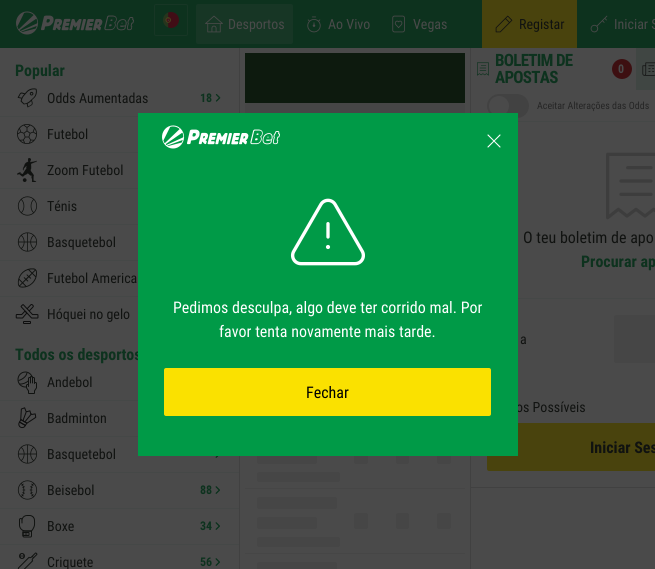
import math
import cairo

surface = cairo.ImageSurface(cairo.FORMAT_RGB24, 655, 569)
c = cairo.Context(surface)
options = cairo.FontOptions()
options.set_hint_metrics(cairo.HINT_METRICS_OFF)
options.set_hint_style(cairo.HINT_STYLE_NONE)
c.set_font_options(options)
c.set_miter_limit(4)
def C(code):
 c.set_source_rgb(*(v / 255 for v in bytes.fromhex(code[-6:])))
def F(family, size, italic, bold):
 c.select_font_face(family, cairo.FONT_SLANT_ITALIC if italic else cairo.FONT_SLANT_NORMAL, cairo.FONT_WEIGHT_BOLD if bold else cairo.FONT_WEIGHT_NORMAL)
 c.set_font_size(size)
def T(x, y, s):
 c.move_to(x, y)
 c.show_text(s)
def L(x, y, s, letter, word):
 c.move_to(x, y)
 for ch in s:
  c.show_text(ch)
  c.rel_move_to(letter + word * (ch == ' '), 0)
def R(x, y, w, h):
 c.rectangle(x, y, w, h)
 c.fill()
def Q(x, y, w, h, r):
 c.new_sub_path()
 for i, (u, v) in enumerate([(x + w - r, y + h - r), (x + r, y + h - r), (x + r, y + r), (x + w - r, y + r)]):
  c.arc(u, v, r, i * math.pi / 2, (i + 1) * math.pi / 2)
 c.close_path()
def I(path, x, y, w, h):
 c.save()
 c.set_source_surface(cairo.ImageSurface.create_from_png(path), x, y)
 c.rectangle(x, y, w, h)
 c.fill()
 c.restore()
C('4a4a4a')
c.paint()
C('0d321e')
R(0,0,655,48)
I('1.png',16,11,118,24)
Q(154.5,4.5,33,31,1.5)
C('173625')
c.set_line_width(1)
c.stroke()
I('2.png',163,12,16,16)
Q(196,4,97,40,2)
c.fill()
I('3.png',205,15,18,18)
F('Roboto Condensed',14,0,0)
C('4a4a4a')
T(228,29,'Desportos')
I('4.png',307,16,14,17)
T(328,29,'Ao Vivo')
I('5.png',392,15,13,18)
T(413,29,'Vegas')
C('49430d')
R(482,0,95,48)
I('6.png',495,15,18,18)
C('101210')
T(519,29,'Registar')
I('7.png',590,15,18,18)
C('4a4a4a')
T(614,29,'Iniciar S')
C('414141')
R(239,48,1,521)
F('Roboto Condensed',16,0,1)
C('0d321e')
T(15,76,'Popular')
I('8.png',17,88,20,20)
F('Roboto Condensed',14,0,0)
C('101210')
T(47,103,'Odds Aumentadas')
F('Roboto Condensed',12,0,1)
C('0d321e')
T(200,102,'18')
I('9.png',215,94,6,8)
C('454847')
R(0,116,138,1)
I('10.png',17,124,20,20)
F('Roboto Condensed',14,0,0)
C('101210')
T(47,139,'Futebol')
C('454847')
R(0,152,138,1)
I('11.png',17,158,20,24)
C('101210')
T(47,175,'Zoom Futebol')
C('454847')
R(0,188,138,1)
I('12.png',17,196,21,20)
C('101210')
T(47,211,'Ténis')
C('454847')
R(0,224,138,1)
I('13.png',17,232,21,20)
C('101210')
T(47,247,'Basquetebol')
C('454847')
R(0,260,138,1)
I('14.png',17,268,20,20)
C('101210')
T(47,283,'Futebol America')
C('454847')
R(0,296,138,1)
I('15.png',15,304,24,20)
C('101210')
T(47,319,'Hóquei no gelo')
F('Roboto Condensed',16,0,1)
C('0d321e')
T(15,360,'Todos os desportos')
I('16.png',17,371,20,23)
F('Roboto Condensed',14,0,0)
C('101210')
T(47,387,'Andebol')
C('454847')
R(0,400,138,1)
I('17.png',18,407,19,22)
C('101210')
T(47,423,'Badminton')
C('454847')
R(0,436,138,1)
I('13.png',17,444,21,20)
C('101210')
T(47,459,'Basquetebol')
I('18.png',215,456,4,2)
C('454847')
R(0,472,239,1)
I('19.png',17,480,21,20)
C('101210')
T(47,495,'Beisebol')
F('Roboto Condensed',12,0,1)
C('0d321e')
T(200,494,'88')
I('20.png',215,486,5,8)
C('454847')
R(0,508,239,1)
I('21.png',19,515,17,23)
F('Roboto Condensed',14,0,0)
C('101210')
T(47,531,'Boxe')
F('Roboto Condensed',12,0,1)
C('0d321e')
T(200,530,'34')
I('20.png',215,522,5,8)
C('454847')
R(0,544,239,1)
I('22.png',17,552,21,17)
F('Roboto Condensed',14,0,0)
C('101210')
T(47,567,'Criquete')
F('Roboto Condensed',12,0,1)
C('0d321e')
T(200,566,'56')
I('20.png',215,558,5,8)
C('0d1a0e')
R(245,53,220,50)
C('464646')
c.new_path()
c.move_to(247,103)
c.line_to(463,103)
c.curve_to(464,103,465,104,465,105)
c.line_to(465,288)
c.line_to(245,288)
c.line_to(245,105)
c.curve_to(245,104,246,103,247,103)
c.close_path()
c.fill()
Q(257,452,60,12,2)
c.fill()
Q(257,472,83,10,2)
c.fill()
Q(354,448,14,16,2)
c.fill()
Q(396,448,13,16,2)
c.fill()
Q(437,448,14,16,2)
c.fill()
R(245,488,220,1)
Q(257,497,80,12,2)
c.fill()
Q(257,517,60,12,2)
c.fill()
Q(257,537,83,10,2)
c.fill()
Q(354,513,14,16,2)
c.fill()
Q(396,513,13,16,2)
c.fill()
Q(437,513,14,16,2)
c.fill()
R(245,553,220,1)
Q(257,562,80,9,2)
c.fill()
C('414141')
R(470,48,1,521)
I('23.png',477,62,12,14)
F('Roboto Condensed',17,0,1)
C('0d321e')
L(495,66,'BOLETIM DE',-.75,0)
L(495,83,'APOSTAS',-.75,0)
C('3d0f11')
c.new_path()
c.arc(622,69,10,0,2 * math.pi)
c.fill()
F('Roboto Condensed',12,0,1)
C('4a4a4a')
T(618,73,'0')
C('404643')
R(636,48,19,42)
I('24.png',642,62,13,14)
C('414141')
R(471,487,184,1)
C('454847')
R(518,121,137,1)
C('424242')
Q(487,94,42,24,12)
c.fill()
C('4a4a4a')
c.arc(499,106,10,0,2 * math.pi)
c.fill()
F('Roboto Condensed',10,0,0)
C('252525')
T(537,109,'Aceitar Alterações das Odds')
I('25.png',606,152,49,68)
F('Roboto Condensed',16,0,0)
C('101210')
T(523,243,'O teu boletim de apo')
F('Roboto Condensed',16,0,1)
C('0d321e')
T(581,267,'Procurar ap')
C('454847')
R(518,298,137,1)
F('Roboto Condensed',14,0,0)
C('101210')
T(520,344,'a')
C('464646')
Q(614,315,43,48,2)
c.fill()
C('101210')
T(516,412,'os Possíveis')
C('49430d')
Q(487,423,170,48,2)
c.fill()
F('Roboto Condensed',16,0,1)
C('101210')
T(590,453,'Iniciar Ses')
C('009a47')
R(138,113,380,343)
I('26.png',162,125,118,24)
I('27.png',487,134,14,14)
I('28.png',290,198,75,68)
F('Roboto Condensed',16,0,0)
C('ffffff')
T(173,313,'Pedimos desculpa, algo deve ter corrido mal. Por')
T(219,337,'favor tenta novamente mais tarde.')
C('fae100')
Q(164,368,327,48,2)
c.fill()
C('000000')
T(306,398,'Fechar')
surface.write_to_png('o.png')
